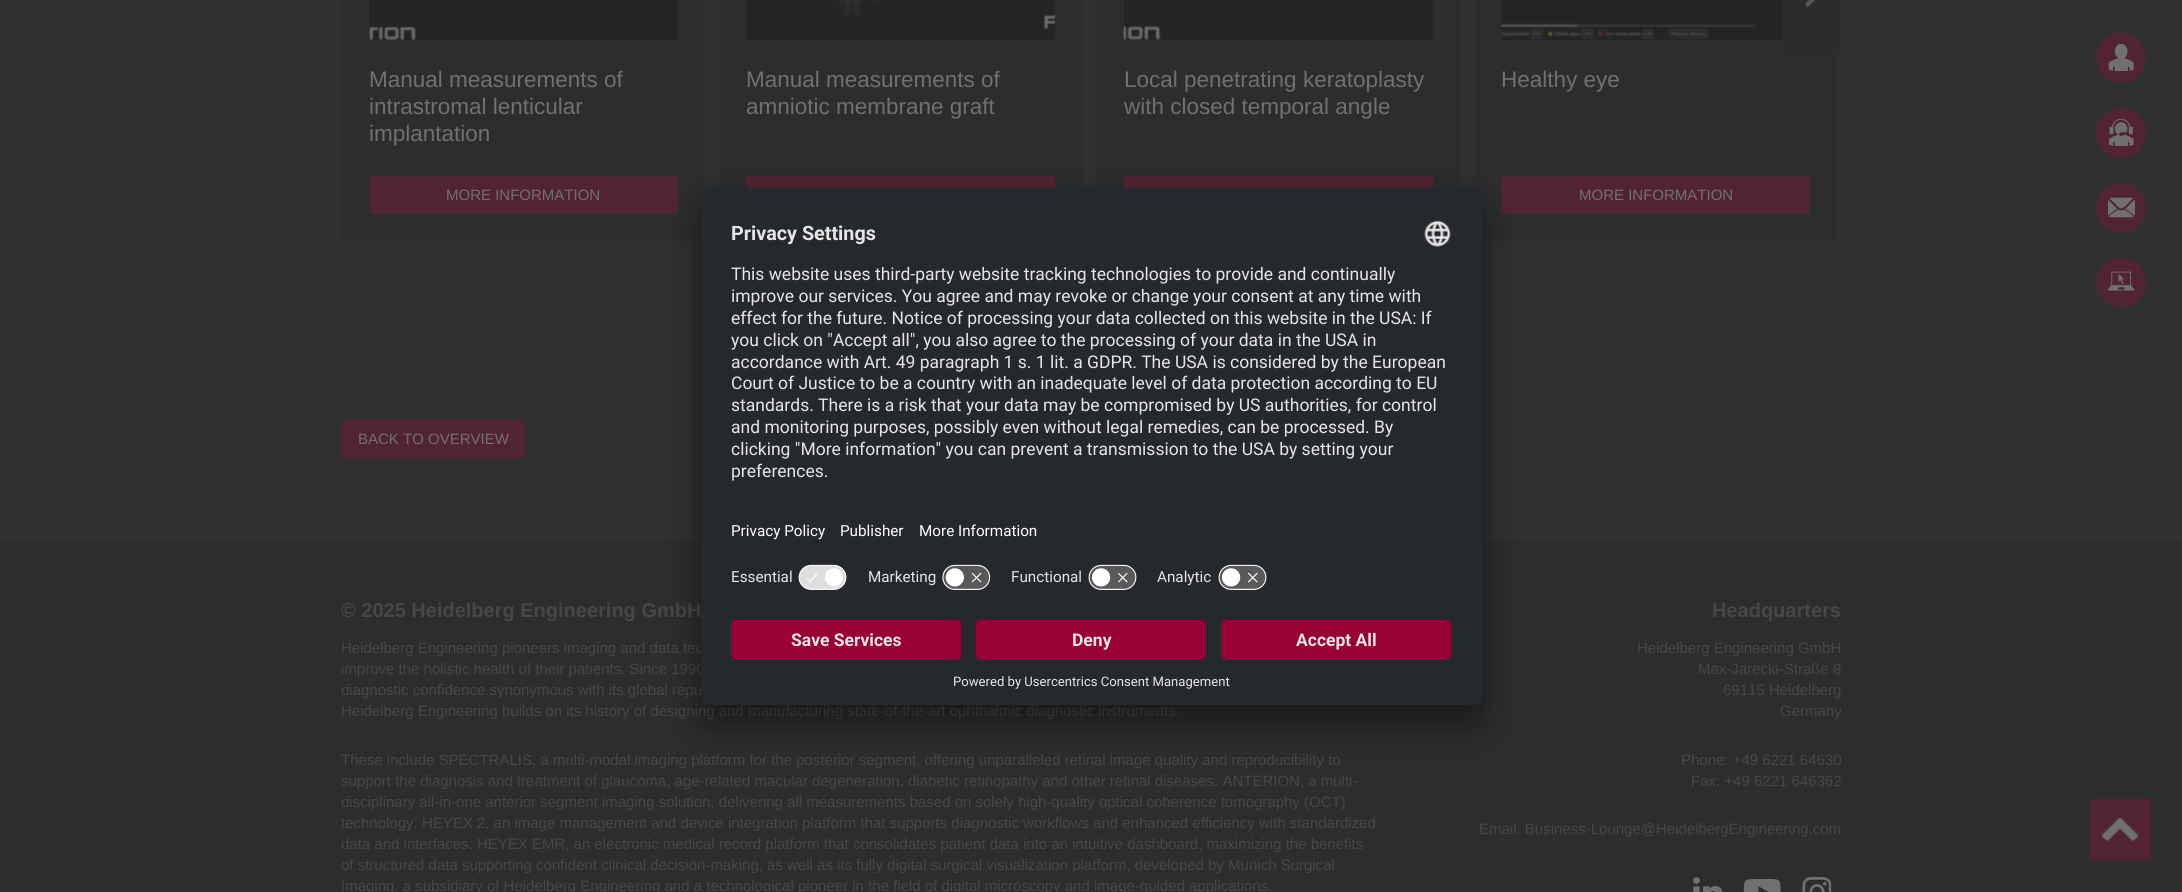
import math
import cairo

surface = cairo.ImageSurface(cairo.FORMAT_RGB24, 2182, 892)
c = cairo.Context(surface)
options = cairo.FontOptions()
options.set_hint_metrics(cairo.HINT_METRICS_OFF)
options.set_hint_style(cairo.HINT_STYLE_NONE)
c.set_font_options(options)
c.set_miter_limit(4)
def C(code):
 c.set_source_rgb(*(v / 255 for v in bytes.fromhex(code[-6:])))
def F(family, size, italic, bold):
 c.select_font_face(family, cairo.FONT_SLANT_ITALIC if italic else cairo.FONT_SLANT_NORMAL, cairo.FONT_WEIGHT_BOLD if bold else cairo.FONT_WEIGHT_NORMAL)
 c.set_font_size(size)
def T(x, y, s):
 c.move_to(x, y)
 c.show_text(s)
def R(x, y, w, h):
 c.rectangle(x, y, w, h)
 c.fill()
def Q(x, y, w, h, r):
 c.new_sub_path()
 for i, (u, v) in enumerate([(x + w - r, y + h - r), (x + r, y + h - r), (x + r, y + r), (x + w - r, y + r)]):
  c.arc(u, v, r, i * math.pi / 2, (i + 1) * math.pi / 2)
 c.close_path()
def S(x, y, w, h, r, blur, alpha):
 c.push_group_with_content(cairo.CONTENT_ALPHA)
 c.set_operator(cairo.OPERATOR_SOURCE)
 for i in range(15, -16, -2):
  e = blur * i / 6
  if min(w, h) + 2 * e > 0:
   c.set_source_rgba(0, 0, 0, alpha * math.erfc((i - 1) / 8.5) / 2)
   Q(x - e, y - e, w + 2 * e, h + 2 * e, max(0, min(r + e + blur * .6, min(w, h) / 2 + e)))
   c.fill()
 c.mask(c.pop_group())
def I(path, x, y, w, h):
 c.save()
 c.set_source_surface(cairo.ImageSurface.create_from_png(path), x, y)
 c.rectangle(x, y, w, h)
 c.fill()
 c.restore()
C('2f3031')
c.paint()
C('2c2d2e')
Q(1474,-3,364,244,2.5)
c.fill()
I('4.png',1500,0,311,40)
c.set_source_rgba(0.173,0.176,0.18,0.65)
c.new_path()
c.move_to(1786,-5)
c.line_to(1841,-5)
c.line_to(1841,54)
c.line_to(1786,54)
c.curve_to(1783,54,1781,52,1781,49)
c.line_to(1781,0)
c.curve_to(1781,-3,1783,-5,1786,-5)
c.close_path()
c.fill()
c.new_path()
c.move_to(1807.5,-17)
c.line_to(1818,-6)
c.line_to(1807.5,4.5)
c.set_source_rgba(0.439,0.439,0.439,0.65)
c.set_line_width(4.3)
c.set_line_cap(cairo.LINE_CAP_ROUND)
c.set_line_join(cairo.LINE_JOIN_ROUND)
c.stroke()
C('2c2d2e')
Q(341,-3,364,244,2.5)
c.fill()
I('1.png',369,0,309,40)
F('Liberation Sans',22.5,0,0)
C('707070')
T(369,87,'Manual measurements of')
T(369,114,'intrastromal lenticular')
T(369,141,'implantation')
C('522433')
Q(369.5,176.5,308,37,2)
c.fill_preserve()
c.set_line_width(1)
c.set_line_cap(cairo.LINE_CAP_BUTT)
c.set_line_join(cairo.LINE_JOIN_MITER)
c.stroke()
F('Liberation Sans',15,0,0)
C('707070')
T(446,200,'MORE INFORMATION')
C('2c2d2e')
R(719,0,364,188)
I('2.png',745,0,311,40)
F('Liberation Sans',22.5,0,0)
C('707070')
T(746,87,'Manual measurements of')
T(746,114,'amniotic membrane graft')
C('522433')
Q(746.5,176.5,308,37,2)
c.fill_preserve()
c.stroke()
C('2c2d2e')
R(1096,0,364,188)
I('3.png',1123,0,310,40)
C('707070')
T(1124,87,'Local penetrating keratoplasty')
T(1124,114,'with closed temporal angle')
C('522433')
Q(1124.5,176.5,308,37,2)
c.fill_preserve()
c.stroke()
C('707070')
T(1501,87,'Healthy eye')
C('522433')
Q(1501.5,176.5,308,37,2)
c.fill_preserve()
c.stroke()
F('Liberation Sans',15,0,0)
C('707070')
T(1579,200,'MORE INFORMATION')
C('522433')
Q(341.5,420.5,183,38,2)
c.fill_preserve()
c.stroke()
C('707070')
T(358,444,'BACK TO OVERVIEW')
C('522433')
c.new_path()
c.arc(2121,58,25,0,2 * math.pi)
c.fill()
I('5.png',2108,44,26,27)
c.arc(2121,133,25,0,2 * math.pi)
c.fill()
I('6.png',2108,119,26,27)
c.arc(2121,208,25,0,2 * math.pi)
c.fill()
I('7.png',2108,197,27,21)
c.arc(2121,283,25,0,2 * math.pi)
c.fill()
I('8.png',2108,271,27,20)
C('2c2d2e')
R(0,541,2182,351)
F('Liberation Sans',20,0,1)
C('474747')
T(341,617,'© 2025 Heidelberg Engineering GmbH')
F('Liberation Sans',15,0,0)
T(341,653,'Heidelberg Engineering pioneers imaging and data tec')
T(341,674,'improve the holistic health of their patients. Since 1990')
T(341,695,'diagnostic confidence synonymous with its global repu')
T(341,716,'Heidelberg Engineering builds on its history of designing and manufacturing state-of-the-art ophthalmic diagnostic instruments.')
T(341,765,'These include SPECTRALIS, a multi-modal imaging platform for the posterior segment, offering unparalleled retinal image quality and reproducibility to')
T(341,786,'support the diagnosis and treatment of glaucoma, age-related macular degeneration, diabetic retinopathy and other retinal diseases. ANTERION, a multi-')
T(341,807,'disciplinary all-in-one anterior segment imaging solution, delivering all measurements based on solely high-quality optical coherence tomography (OCT)')
T(341,828,'technology. HEYEX 2, an image management and device integration platform that supports diagnostic workflows and enhanced efficiency with standardized')
T(341,849,'data and interfaces. HEYEX EMR, an electronic medical record platform that consolidates patient data into an intuitive dashboard, maximizing the benefits')
T(341,870,'of structured data supporting confident clinical decision-making, as well as its fully digital surgical visualization platform, developed by Munich Surgical')
T(341,891,'Imaging, a subsidiary of Heidelberg Engineering and a technological pioneer in the field of digital microscopy and image-guided applications.')
F('Liberation Sans',20,0,1)
T(1712,617,'Headquarters')
F('Liberation Sans',15,0,0)
T(1637,653,'Heidelberg Engineering GmbH')
T(1698,674,'Max-Jarecki-Straße 8')
T(1723,695,'69115 Heidelberg')
T(1780,716,'Germany')
T(1681,765,'Phone: +49 6221 64630')
T(1691,786,'Fax: +49 6221 646362')
T(1479,834,'Email: Business-Lounge@HeidelbergEngineering.com')
I('9.png',1693,877,30,15)
I('10.png',1743,878,38,14)
I('11.png',1802,877,30,15)
C('522433')
Q(2089,799,62,62,2.5)
c.fill()
I('12.png',2101,817,38,25)
C('000000')
S(701,213,782,517,10,17.5,.3)
S(701,194,782,517,10,16,.22)
C('25282d')
Q(701,188,782,517,10)
c.fill()
F('Roboto',19.75,0,1)
C('e6e6e6')
T(731,240,'Privacy Settings')
I('13.png',1424,220,27,27)
F('Roboto',17.5,0,0)
T(731,280,'This website uses third-party website tracking technologies to provide and continually')
T(731,302,'improve our services. You agree and may revoke or change your consent at any time with')
T(731,324,'effect for the future. Notice of processing your data collected on this website in the USA: If')
T(731,346,'you click on "Accept all", you also agree to the processing of your data in the USA in')
T(731,368,'accordance with Art. 49 paragraph 1 s. 1 lit. a GDPR. The USA is considered by the European')
T(731,389,'Court of Justice to be a country with an inadequate level of data protection according to EU')
T(731,411,'standards. There is a risk that your data may be compromised by US authorities, for control')
T(731,433,'and monitoring purposes, possibly even without legal remedies, can be processed. By')
T(731,455,'clicking "More information" you can prevent a transmission to the USA by setting your')
T(731,477,'preferences.')
F('Roboto',15.25,0,0)
C('ffffff')
T(731,536,'Privacy Policy')
T(840,536,'Publisher')
T(919,536,'More Information')
C('e6e6e6')
T(731,582,'Essential')
I('14.png',798,564,49,26)
T(868,582,'Marketing')
I('15.png',942,564,49,26)
T(1011,582,'Functional')
I('16.png',1088,564,49,26)
T(1157,582,'Analytic')
I('16.png',1218,564,49,26)
C('990033')
Q(731,620,230,40,5)
c.fill()
F('Roboto',17.5,0,1)
C('e6e6e6')
T(791,646,'Save Services')
C('990033')
Q(976,620,230,40,5)
c.fill()
C('e6e6e6')
T(1072,646,'Deny')
C('990033')
Q(1221,620,230,40,5)
c.fill()
C('e6e6e6')
T(1296,646,'Accept All')
F('Roboto',13.1,0,0)
T(953,686,'Powered by Usercentrics Consent Management')
surface.write_to_png('o.png')
